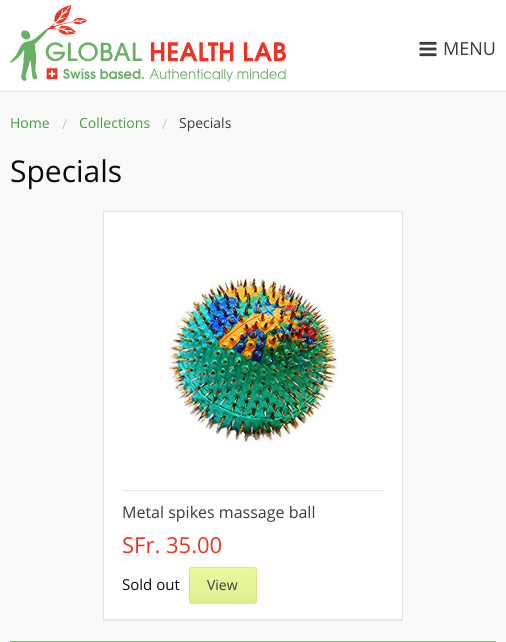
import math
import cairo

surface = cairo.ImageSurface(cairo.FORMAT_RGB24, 506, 642)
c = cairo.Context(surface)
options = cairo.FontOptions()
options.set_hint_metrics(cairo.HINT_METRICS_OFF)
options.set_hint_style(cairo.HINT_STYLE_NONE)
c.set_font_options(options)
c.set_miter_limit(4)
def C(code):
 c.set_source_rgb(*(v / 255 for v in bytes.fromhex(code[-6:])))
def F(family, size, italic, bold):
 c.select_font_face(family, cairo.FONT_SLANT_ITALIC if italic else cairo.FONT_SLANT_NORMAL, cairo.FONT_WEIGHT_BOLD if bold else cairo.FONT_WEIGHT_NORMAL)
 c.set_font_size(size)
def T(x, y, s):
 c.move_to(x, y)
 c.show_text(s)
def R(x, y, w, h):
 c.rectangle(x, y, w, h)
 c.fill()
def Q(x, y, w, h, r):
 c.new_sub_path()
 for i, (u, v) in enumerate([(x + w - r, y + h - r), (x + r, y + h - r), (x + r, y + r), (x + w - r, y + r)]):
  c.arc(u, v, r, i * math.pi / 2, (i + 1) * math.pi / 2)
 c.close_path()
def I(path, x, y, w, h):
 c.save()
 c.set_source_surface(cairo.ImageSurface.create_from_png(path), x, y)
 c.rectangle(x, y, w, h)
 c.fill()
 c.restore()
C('f9f9f9')
c.paint()
C('ffffff')
R(0,0,506,91)
C('e6e5e5')
R(0,91,506,1)
I('1.png',10,5,276,77)
I('2.png',419,41,18,16)
F('Open Sans',18,0,0)
C('373c41')
T(443,55,'MENU')
F('Open Sans',14,0,0)
C('429f3b')
T(10,128,'Home')
C('cacaca')
T(62,129,'/')
C('429f3b')
T(79,128,'Collections')
C('cacaca')
T(162,129,'/')
C('373c41')
T(179,128,'Specials')
F('Open Sans',30,0,0)
C('0a0a0a')
T(10,182,'Specials')
C('ffffff')
R(104,212,298,407)
C('e6e5e5')
R(103,211,300,1)
R(402,211,1,410)
R(103,619,300,2)
R(103,211,1,410)
R(122,490,262,1)
I('3.png',164,274,175,171)
F('Open Sans',16,0,0)
C('373c41')
T(122,518,'Metal spikes massage ball')
F('Open Sans',22,0,0)
C('ea3424')
T(122,553,'SFr. 35.00')
F('Open Sans',15,0,0)
C('0a0a0a')
T(122,590,'Sold out')
c.save()
Q(189,567,68,37,3)
c.clip()
gradient = cairo.LinearGradient(223,568,223,603)
gradient.add_color_stop_rgba(0,0.922,0.976,0.627,1)
gradient.add_color_stop_rgba(1,0.875,0.937,0.549,1)
c.set_source(gradient)
R(189,568,68,35)
c.restore()
Q(189.5,567.5,67,36,2.5)
C('d8e885')
c.set_line_width(1)
c.stroke()
F('Open Sans',14,0,0)
C('373c41')
T(207,590,'View')
C('7dbe62')
R(10,641,486,1)
surface.write_to_png('o.png')
